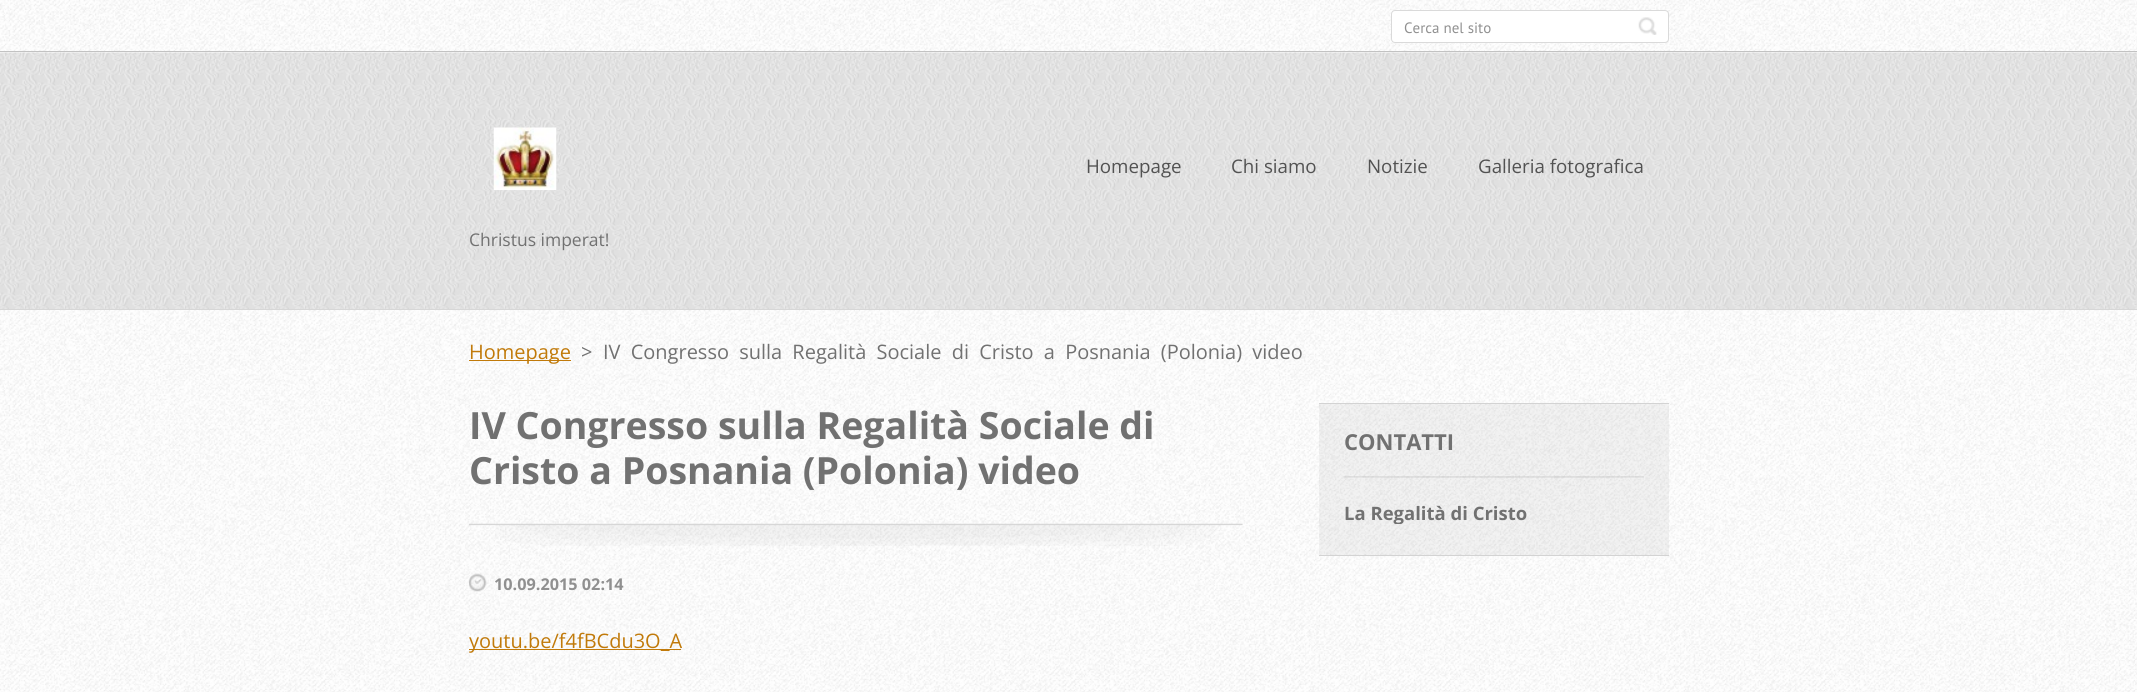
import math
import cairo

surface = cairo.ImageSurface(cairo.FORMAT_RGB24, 2137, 692)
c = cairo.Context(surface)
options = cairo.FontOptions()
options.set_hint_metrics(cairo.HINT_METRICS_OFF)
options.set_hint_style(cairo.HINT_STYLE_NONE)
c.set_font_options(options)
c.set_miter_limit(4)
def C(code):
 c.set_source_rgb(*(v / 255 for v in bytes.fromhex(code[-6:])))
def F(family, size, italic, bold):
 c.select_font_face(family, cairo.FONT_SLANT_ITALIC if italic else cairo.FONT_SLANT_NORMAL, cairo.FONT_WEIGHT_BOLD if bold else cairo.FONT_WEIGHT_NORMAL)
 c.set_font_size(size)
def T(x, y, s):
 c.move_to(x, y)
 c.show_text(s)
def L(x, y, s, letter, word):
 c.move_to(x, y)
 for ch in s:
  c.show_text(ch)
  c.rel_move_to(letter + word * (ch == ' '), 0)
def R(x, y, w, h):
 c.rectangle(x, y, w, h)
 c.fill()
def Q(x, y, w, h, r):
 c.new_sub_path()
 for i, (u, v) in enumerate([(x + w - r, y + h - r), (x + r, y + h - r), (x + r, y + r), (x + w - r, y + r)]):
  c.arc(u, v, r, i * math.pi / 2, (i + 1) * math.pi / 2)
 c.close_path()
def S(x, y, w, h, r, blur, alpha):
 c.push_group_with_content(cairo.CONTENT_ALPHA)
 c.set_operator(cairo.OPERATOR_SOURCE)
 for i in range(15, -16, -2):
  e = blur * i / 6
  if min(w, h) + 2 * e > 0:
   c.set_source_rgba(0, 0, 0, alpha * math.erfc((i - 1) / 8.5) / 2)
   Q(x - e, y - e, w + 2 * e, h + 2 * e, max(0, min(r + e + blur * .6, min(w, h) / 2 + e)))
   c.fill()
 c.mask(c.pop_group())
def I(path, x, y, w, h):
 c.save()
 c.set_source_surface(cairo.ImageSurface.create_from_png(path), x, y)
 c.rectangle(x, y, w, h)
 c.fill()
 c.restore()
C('ffffff')
c.paint()
I('1.png',0,0,2137,692)
c.save()
c.set_fill_rule(cairo.FILL_RULE_EVEN_ODD)
c.new_path()
c.move_to(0,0)
c.line_to(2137,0)
c.line_to(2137,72)
c.line_to(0,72)
c.close_path()
c.move_to(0,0)
c.line_to(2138,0)
c.line_to(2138,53)
c.line_to(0,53)
c.close_path()
c.clip()
C('000000')
S(0,0,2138,53,0,6,.7)
c.restore()
I('2.png',0,52,2137,1)
C('c2c2c2')
R(0,51,2137,1)
C('ffffff')
Q(1391.5,10.5,277,32,3.5)
c.fill_preserve()
C('dadada')
c.set_line_width(1)
c.stroke()
F('PT Sans',15,0,0)
C('909090')
T(1404,33,'Cerca nel sito')
I('3.png',1638,17,19,18)
I('4.png',0,52,2137,257)
C('d7d7d7')
R(0,309,2137,1)
F('Open Sans',18.75,0,0)
C('525252')
T(1086,173,'Homepage')
T(1231,173,'Chi siamo')
T(1367,173,'Notizie')
T(1478,173,'Galleria fotografica')
I('5.png',493,127,64,63)
F('Open Sans',17.5,0,0)
C('717171')
T(469,246,'Christus imperat!')
C('c17a0a')
R(469,360,102,1)
F('Open Sans',20,0,0)
T(469,359,'Homepage')
C('717171')
T(581,359,'>')
L(603,359,'IV Congresso sulla Regalità Sociale di Cristo a Posnania (Polonia) video',0,5)
I('6.png',469,523,774,23)
F('Open Sans',37.5,0,1)
T(469,439,'IV Congresso sulla Regalità Sociale di')
T(469,484,'Cristo a Posnania (Polonia) video')
I('7.png',468,573,19,19)
F('Open Sans',16.25,0,1)
C('909090')
T(494,590,'10.09.2015 02:14')
C('c17a0a')
R(469,649,212,1)
F('Open Sans',20,0,0)
T(469,648,'youtu.be/f4fBCdu3O_A')
c.set_source_rgba(0,0,0,0.05)
R(1319,404,350,151)
C('d3d3d3')
R(1319,403,350,1)
R(1319,555,350,1)
I('8.png',1343,476,301,2)
F('Open Sans',22,0,1)
C('717171')
T(1344,450,'CONTATTI')
c.save()
c.rectangle(1344,501,300,23)
c.clip()
F('Open Sans',18.5,0,1)
T(1344,520,'La Regalità di Cristo')
c.restore()
surface.write_to_png('o.png')
